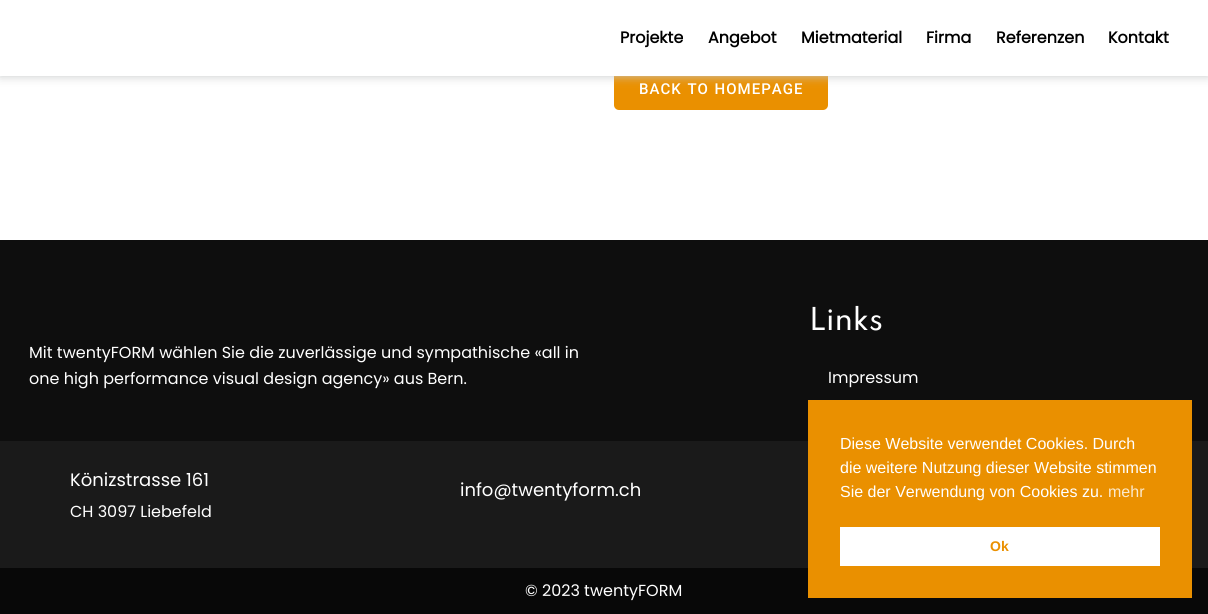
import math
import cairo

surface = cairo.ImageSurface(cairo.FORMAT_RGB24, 1208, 614)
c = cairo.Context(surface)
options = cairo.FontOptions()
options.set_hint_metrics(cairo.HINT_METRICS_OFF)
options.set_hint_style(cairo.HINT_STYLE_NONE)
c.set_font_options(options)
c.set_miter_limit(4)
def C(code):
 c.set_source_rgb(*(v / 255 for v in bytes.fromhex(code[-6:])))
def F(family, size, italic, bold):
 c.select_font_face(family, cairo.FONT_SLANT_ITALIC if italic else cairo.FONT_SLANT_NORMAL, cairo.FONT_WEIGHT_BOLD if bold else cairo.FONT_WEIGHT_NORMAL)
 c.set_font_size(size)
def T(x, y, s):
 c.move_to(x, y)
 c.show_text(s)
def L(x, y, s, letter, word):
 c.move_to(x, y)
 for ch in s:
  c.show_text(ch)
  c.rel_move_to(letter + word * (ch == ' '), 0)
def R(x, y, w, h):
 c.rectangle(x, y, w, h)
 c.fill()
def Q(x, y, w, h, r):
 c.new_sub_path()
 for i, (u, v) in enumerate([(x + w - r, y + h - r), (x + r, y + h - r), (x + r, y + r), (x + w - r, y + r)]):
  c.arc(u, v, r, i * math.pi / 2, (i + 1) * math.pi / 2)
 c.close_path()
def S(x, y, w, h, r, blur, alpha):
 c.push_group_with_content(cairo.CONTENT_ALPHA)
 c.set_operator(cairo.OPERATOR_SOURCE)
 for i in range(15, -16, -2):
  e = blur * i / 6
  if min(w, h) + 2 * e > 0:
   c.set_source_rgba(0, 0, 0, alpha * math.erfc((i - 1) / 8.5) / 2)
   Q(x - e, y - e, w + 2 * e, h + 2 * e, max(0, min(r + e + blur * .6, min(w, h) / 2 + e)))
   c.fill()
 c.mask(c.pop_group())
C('ffffff')
c.paint()
C('ea9000')
Q(614,70,214,40,5)
c.fill()
C('c6c9c9')
S(0,0,1208,76,0,5,1)
C('ffffff')
R(0,0,1208,76)
F('Poppins',16,0,1)
C('000000')
T(620,43,'Projekte')
T(708,43,'Angebot')
T(801,43,'Mietmaterial')
T(926,43,'Firma')
T(996,43,'Referenzen')
T(1108,43,'Kontakt')
F('Roboto Medium',15,0,0)
C('ffffff')
L(639,94,'BACK TO HOMEPAGE',1,1)
C('0e0e0e')
R(0,240,1208,201)
F('Poppins',16,0,0)
C('ffffff')
T(29,358,'Mit twentyFORM wählen Sie die zuverlässige und sympathische «all in')
T(29,384,'one high performance visual design agency» aus Bern.')
F('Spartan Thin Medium',28,0,0)
T(809,330,'Links')
F('Poppins',16,0,0)
T(828,383,'Impressum')
C('1a1a1a')
R(0,441,1208,127)
F('Poppins',18,0,0)
C('ffffff')
T(70,486,'Könizstrasse 161')
F('Poppins',16,0,0)
T(70,517,'CH 3097 Liebefeld')
F('Poppins',18,0,0)
T(460,496,'info@twentyform.ch')
C('080808')
R(0,568,1208,46)
F('Poppins',16,0,0)
C('ffffff')
T(525,596,'© 2023 twentyFORM')
C('ea9000')
R(808,400,384,198)
F('Liberation Sans',16,0,0)
C('ffffff')
T(840,449,'Diese Website verwendet Cookies. Durch')
T(840,473,'die weitere Nutzung dieser Website stimmen')
T(840,497,'Sie der Verwendung von Cookies zu.')
C('fbe9cc')
T(1108,497,'mehr')
C('ffffff')
R(840,527,320,39)
F('Liberation Sans',14,0,1)
C('ea9000')
T(990,551,'Ok')
surface.write_to_png('o.png')
